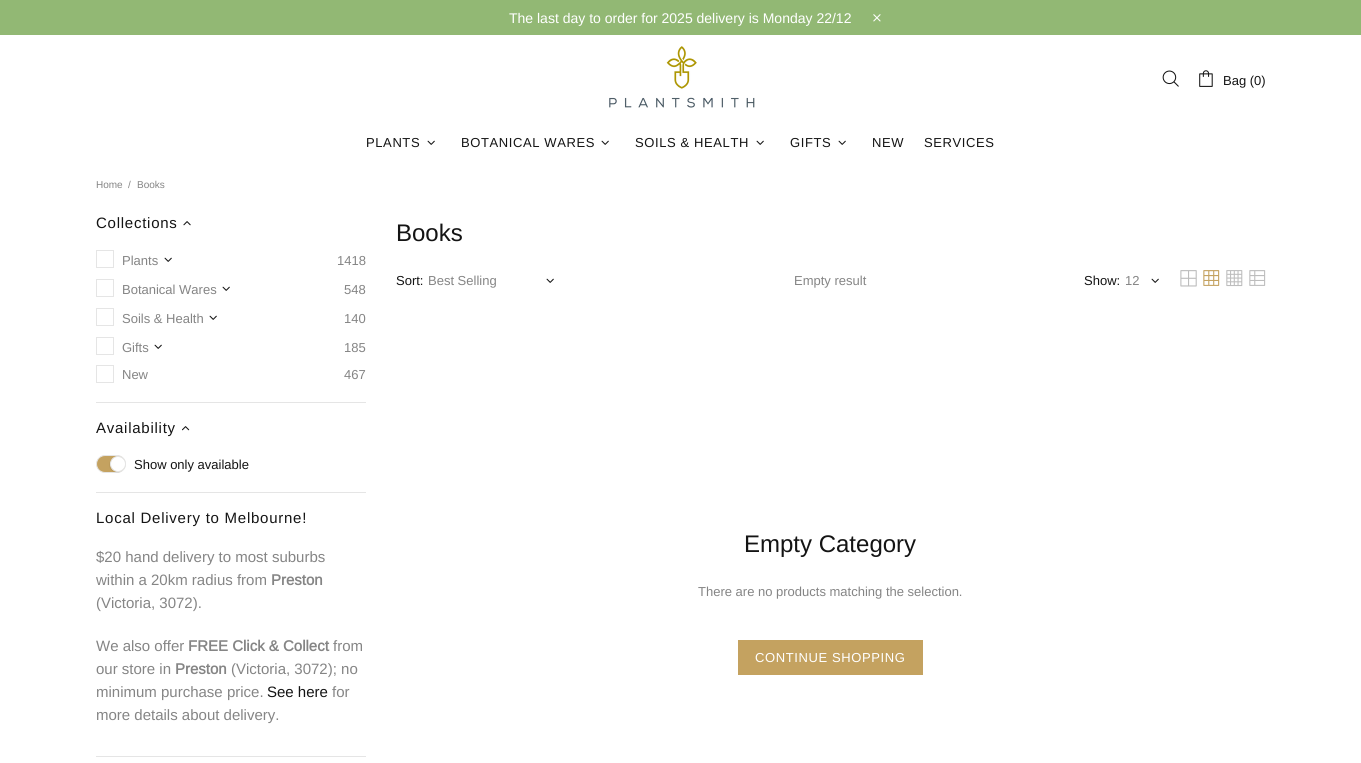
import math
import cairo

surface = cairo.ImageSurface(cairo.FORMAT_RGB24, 1361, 763)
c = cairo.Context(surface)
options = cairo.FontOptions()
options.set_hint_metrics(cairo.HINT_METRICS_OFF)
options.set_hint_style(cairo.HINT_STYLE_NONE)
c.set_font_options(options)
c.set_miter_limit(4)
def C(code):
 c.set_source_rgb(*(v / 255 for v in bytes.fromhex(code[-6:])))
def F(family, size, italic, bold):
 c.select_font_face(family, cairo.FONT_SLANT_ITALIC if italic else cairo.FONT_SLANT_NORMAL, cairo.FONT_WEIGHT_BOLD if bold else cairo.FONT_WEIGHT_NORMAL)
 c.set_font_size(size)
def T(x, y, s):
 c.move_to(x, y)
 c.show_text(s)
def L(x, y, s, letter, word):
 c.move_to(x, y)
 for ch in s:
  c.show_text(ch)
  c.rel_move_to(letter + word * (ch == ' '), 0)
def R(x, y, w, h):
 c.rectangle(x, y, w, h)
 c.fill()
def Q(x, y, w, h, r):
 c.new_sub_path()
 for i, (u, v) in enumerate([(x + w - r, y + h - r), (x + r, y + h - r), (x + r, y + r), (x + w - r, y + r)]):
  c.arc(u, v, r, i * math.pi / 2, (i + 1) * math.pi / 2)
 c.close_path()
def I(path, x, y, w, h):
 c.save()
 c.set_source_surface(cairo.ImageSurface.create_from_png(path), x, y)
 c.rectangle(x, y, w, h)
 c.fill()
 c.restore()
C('ffffff')
c.paint()
C('92b874')
R(0,0,1361,35)
F('Arimo',14,0,0)
C('ffffff')
T(509,23,'The last day to order for 2025 delivery is Monday 22/12')
I('1.png',873,14,8,8)
I('2.png',609,46,146,62)
I('3.png',1162,70,17,17)
I('4.png',1199,70,14,17)
F('Arimo',13,0,0)
C('141414')
T(1223,85,'Bag (0)')
L(366,147,'PLANTS',.6,0)
I('5.png',427,140,8,5)
L(461,147,'BOTANICAL WARES',.6,0)
I('5.png',601,140,8,5)
L(635,147,'SOILS & HEALTH',.6,0)
I('5.png',756,140,8,5)
L(790,147,'GIFTS',.6,0)
I('5.png',838,140,8,5)
L(872,147,'NEW',.6,0)
L(924,147,'SERVICES',.6,0)
F('Arimo',10,0,0)
C('858585')
T(96,188,'Home')
T(128,188,'/')
T(137,188,'Books')
F('Arimo',15,0,0)
C('141414')
L(96,228,'Collections',.75,0)
I('6.png',183,221,8,5)
c.rectangle(96.5,250.5,17,17)
C('e5e5e5')
c.set_line_width(1)
c.stroke()
F('Arimo',13,0,0)
C('858585')
T(122,265,'Plants')
I('5.png',164,257,8,5)
T(337,265,'1418')
c.rectangle(96.5,279.5,17,17)
C('e5e5e5')
c.stroke()
C('858585')
T(122,294,'Botanical Wares')
I('5.png',222,286,8,5)
T(344,294,'548')
c.rectangle(96.5,308.5,17,17)
C('e5e5e5')
c.stroke()
C('858585')
T(122,323,'Soils & Health')
I('5.png',209,315,8,5)
T(344,323,'140')
c.rectangle(96.5,337.5,17,17)
C('e5e5e5')
c.stroke()
C('858585')
T(122,352,'Gifts')
I('5.png',154,344,8,5)
T(344,352,'185')
c.rectangle(96.5,365.5,17,17)
C('e5e5e5')
c.stroke()
C('858585')
T(122,379,'New')
T(344,379,'467')
C('e5e5e5')
R(96,402,270,1)
F('Arimo',15,0,0)
C('141414')
L(96,433,'Availability',.75,0)
I('7.png',182,426,8,5)
C('c4a260')
Q(96.5,455.5,29,17,8.5)
c.fill_preserve()
C('e5e5e5')
c.stroke()
c.set_source_rgba(0,0,0,0.05)
c.new_path()
c.move_to(123,470)
c.curve_to(116,476.5,105.5,466,112,459)
c.curve_to(103,466,116,479,123,470)
c.close_path()
c.fill()
C('ffffff')
c.arc(118,464,7.5,0,2 * math.pi)
c.fill_preserve()
C('e5e5e5')
c.stroke()
F('Arimo',13,0,0)
C('141414')
T(134,469,'Show only available')
C('e5e5e5')
R(96,492,270,1)
F('Arimo',15,0,0)
C('141414')
L(96,523,'Local Delivery to Melbourne!',.75,0)
C('858585')
T(96,562,'$20 hand delivery to most suburbs')
T(96,585,'within a 20km radius from')
F('Arimo',15,0,1)
T(271,585,'Preston')
F('Arimo',15,0,0)
T(96,608,'(Victoria, 3072).')
T(96,651,'We also offer')
F('Arimo',15,0,1)
T(188,651,'FREE Click & Collect')
F('Arimo',15,0,0)
T(333,651,'from')
T(96,674,'our store in')
T(231,674,'(Victoria, 3072); no')
T(96,697,'minimum purchase price.')
C('141414')
T(267,697,'See here')
C('858585')
T(332,697,'for')
T(96,720,'more details about delivery.')
F('Arimo',15,0,1)
T(175,674,'Preston')
C('e5e5e5')
R(96,756,270,1)
F('Arimo',24,0,0)
C('141414')
T(396,241,'Books')
F('Arimo',13,0,0)
T(396,285,'Sort:')
C('858585')
T(428,285,'Best Selling')
I('5.png',546,278,8,5)
T(794,285,'Empty result')
C('141414')
T(1084,285,'Show:')
C('858585')
T(1125,285,'12')
I('5.png',1151,278,8,5)
I('8.png',1180,270,17,17)
I('9.png',1203,270,17,16)
I('10.png',1226,270,17,17)
I('11.png',1249,270,17,16)
F('Arimo',24,0,0)
C('141414')
T(744,552,'Empty Category')
F('Arimo',13,0,0)
C('858585')
T(698,596,'There are no products matching the selection.')
C('c4a260')
R(738,640,185,35)
C('ffffff')
L(755,662,'CONTINUE SHOPPING',.6,0)
surface.write_to_png('o.png')
